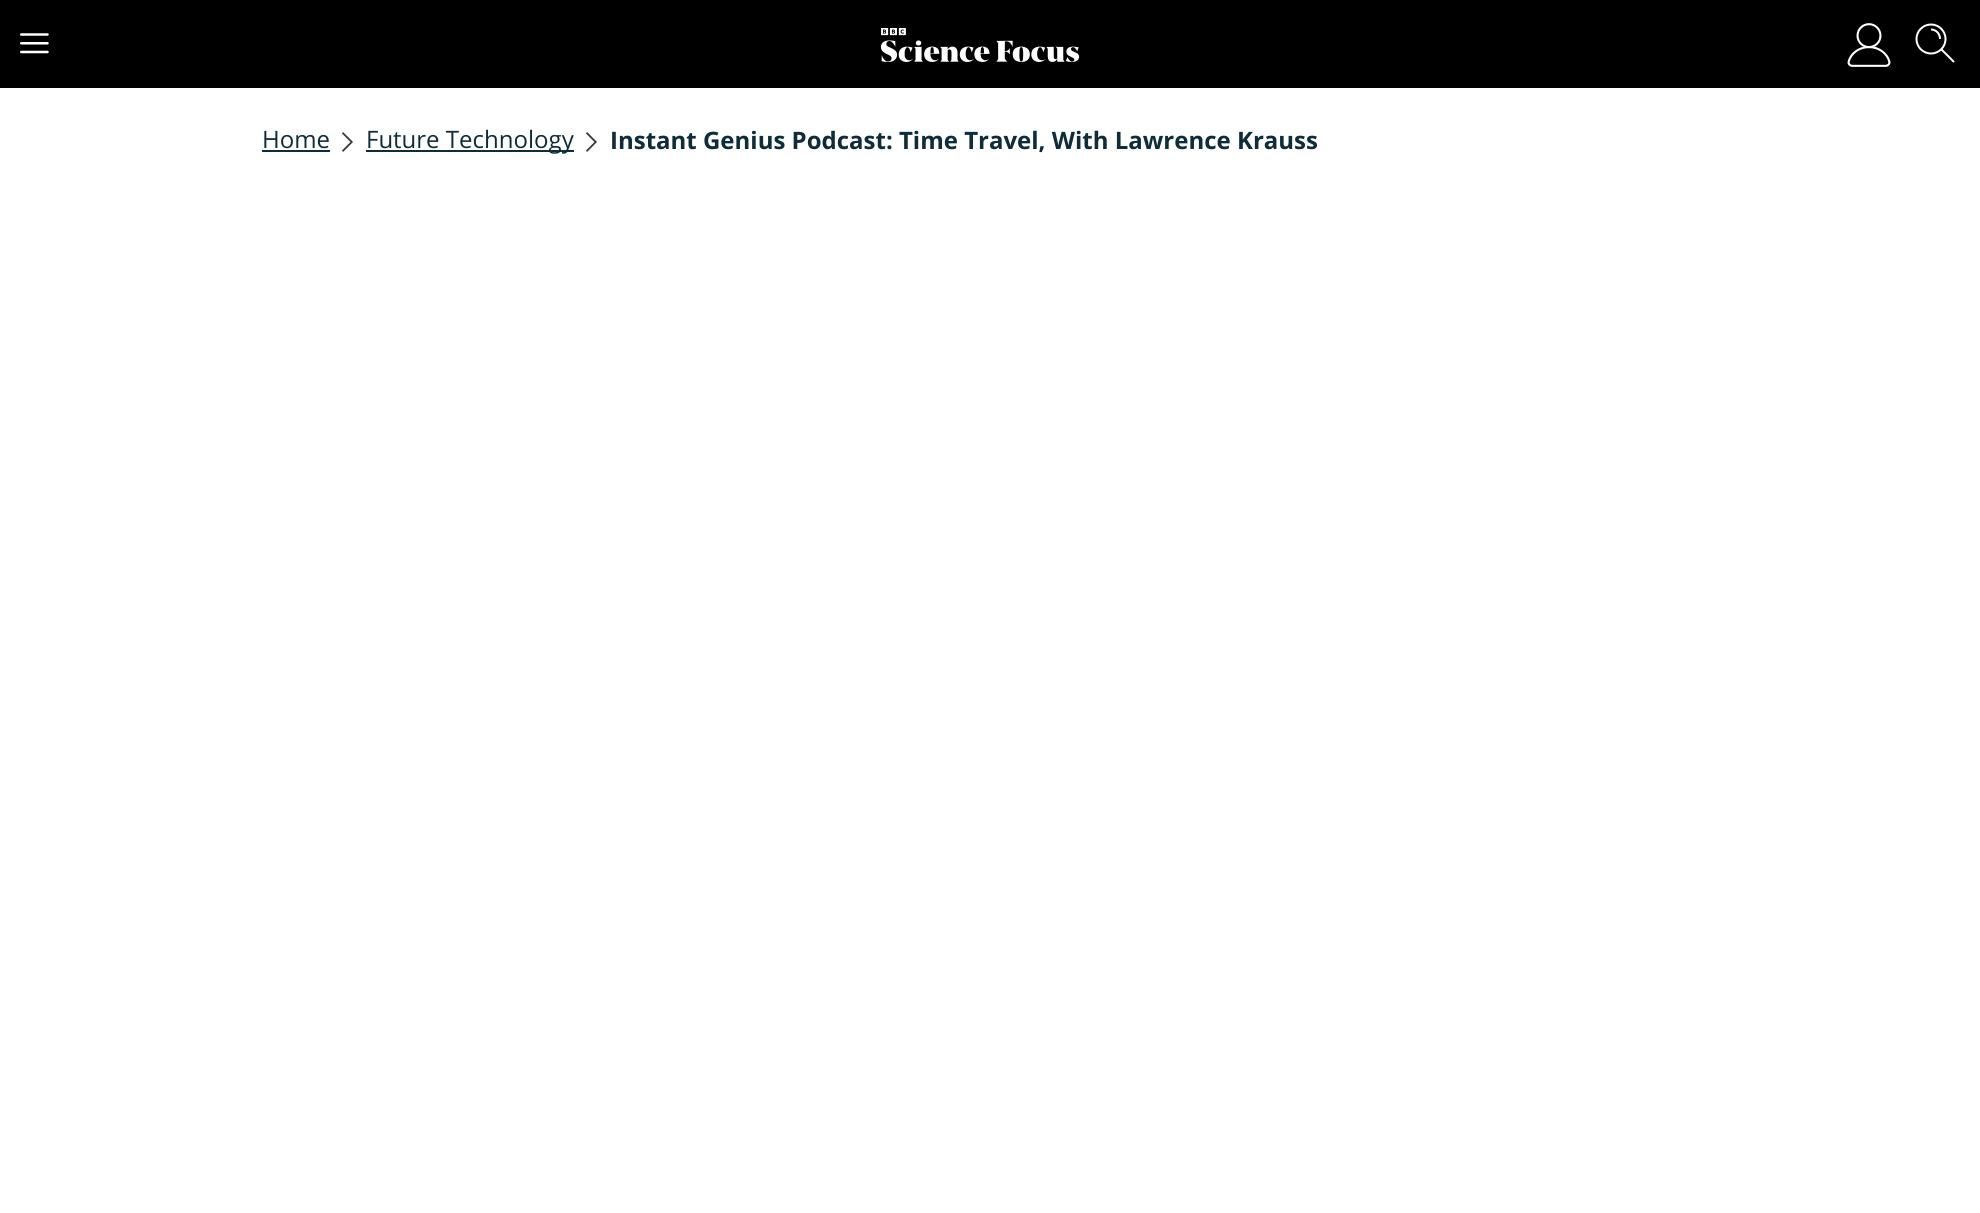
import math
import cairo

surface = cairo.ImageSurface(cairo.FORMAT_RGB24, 1980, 1213)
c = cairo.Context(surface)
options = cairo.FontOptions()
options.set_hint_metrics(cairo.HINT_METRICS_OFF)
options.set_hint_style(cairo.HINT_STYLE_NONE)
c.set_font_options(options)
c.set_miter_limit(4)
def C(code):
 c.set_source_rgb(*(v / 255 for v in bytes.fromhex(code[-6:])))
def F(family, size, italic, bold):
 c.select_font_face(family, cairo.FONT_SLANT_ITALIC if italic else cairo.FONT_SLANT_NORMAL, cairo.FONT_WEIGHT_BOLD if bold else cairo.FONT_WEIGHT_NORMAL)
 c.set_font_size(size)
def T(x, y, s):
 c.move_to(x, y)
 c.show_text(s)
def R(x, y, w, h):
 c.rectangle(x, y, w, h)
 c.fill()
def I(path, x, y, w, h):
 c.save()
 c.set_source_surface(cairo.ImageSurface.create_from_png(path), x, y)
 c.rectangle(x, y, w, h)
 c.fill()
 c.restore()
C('ffffff')
c.paint()
C('000000')
R(0,0,1980,88)
I('1.png',20,33,29,21)
I('2.png',880,28,200,34)
I('3.png',1847,23,44,44)
c.arc(1931,39,14.5,0,2 * math.pi)
C('ffffff')
c.stroke()
c.new_path()
c.move_to(1940,39)
c.curve_to(1940,33.5,1936,29.5,1931,29.5)
c.stroke()
c.new_path()
c.move_to(1954,62)
c.line_to(1941,49)
c.set_line_join(cairo.LINE_JOIN_ROUND)
c.stroke()
F('Open Sans',24,0,0)
C('0f2c3b')
T(262,148,'Home')
R(262,150,68,2)
C('343434')
c.set_fill_rule(cairo.FILL_RULE_EVEN_ODD)
c.new_path()
c.move_to(343,152)
c.line_to(353,142)
c.line_to(343,132)
c.line_to(342,133.5)
c.line_to(350.5,142)
c.line_to(342,150.5)
c.close_path()
c.fill()
C('0f2c3b')
R(366,150,208,2)
T(366,148,'Future Technology')
C('343434')
c.new_path()
c.move_to(587,152)
c.line_to(597,142)
c.line_to(587,132)
c.line_to(586,133.5)
c.line_to(594.5,142)
c.line_to(586,150.5)
c.close_path()
c.fill()
F('Open Sans',24,0,1)
C('0f2c3b')
T(610,149,'Instant Genius Podcast: Time Travel, With Lawrence Krauss')
surface.write_to_png('o.png')
